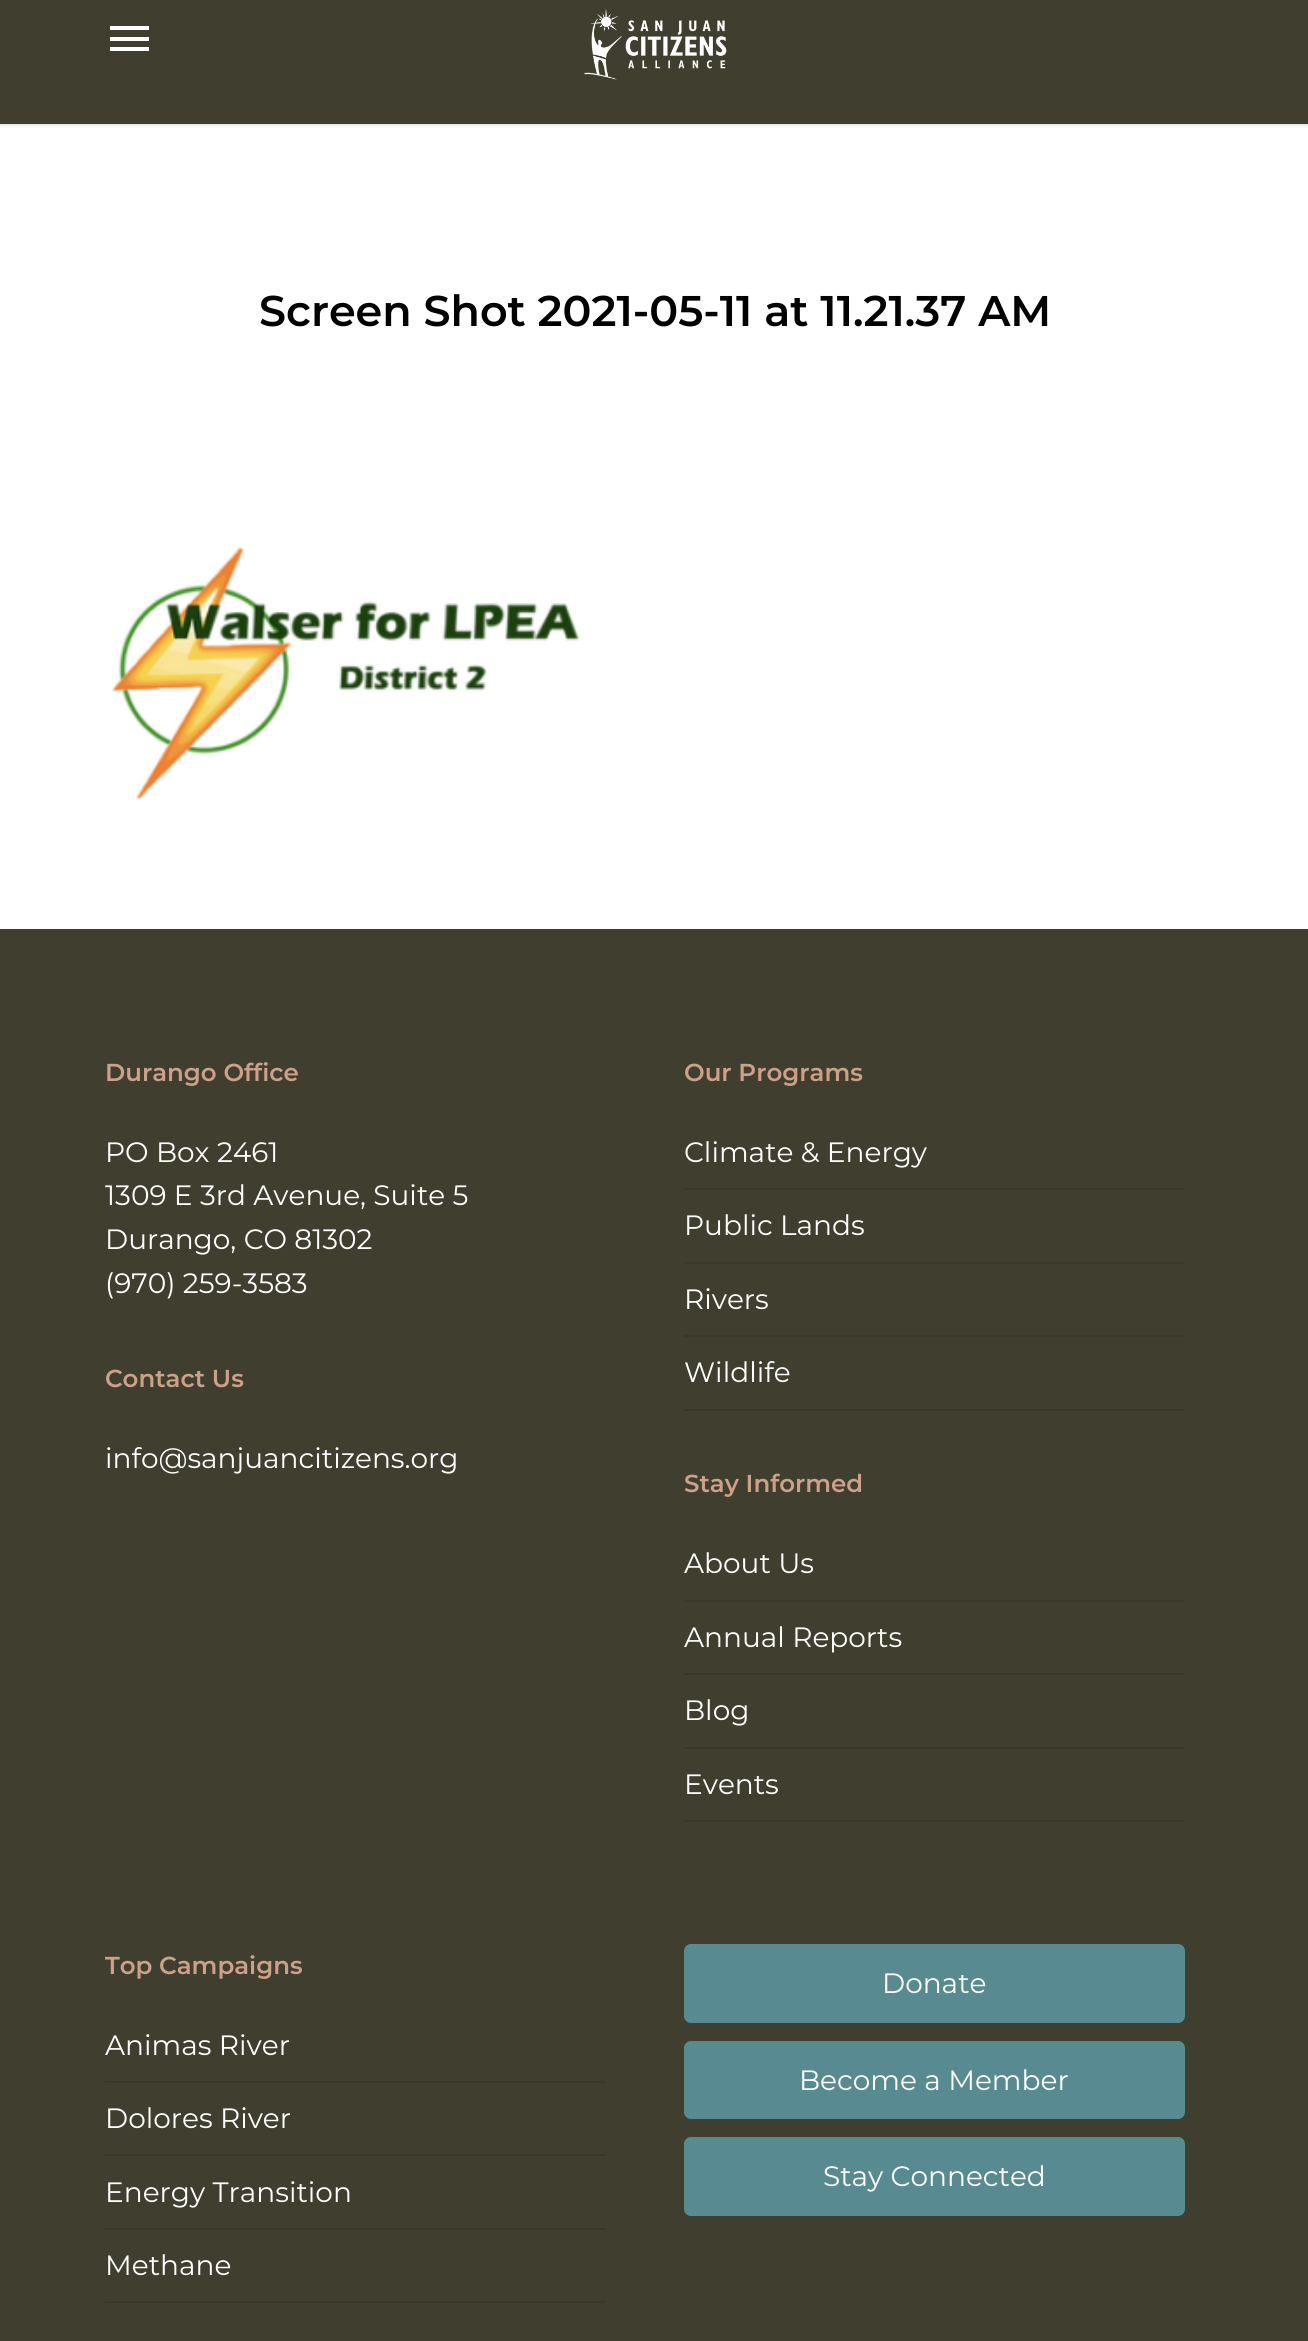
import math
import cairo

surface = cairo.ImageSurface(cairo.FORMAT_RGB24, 1308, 2341)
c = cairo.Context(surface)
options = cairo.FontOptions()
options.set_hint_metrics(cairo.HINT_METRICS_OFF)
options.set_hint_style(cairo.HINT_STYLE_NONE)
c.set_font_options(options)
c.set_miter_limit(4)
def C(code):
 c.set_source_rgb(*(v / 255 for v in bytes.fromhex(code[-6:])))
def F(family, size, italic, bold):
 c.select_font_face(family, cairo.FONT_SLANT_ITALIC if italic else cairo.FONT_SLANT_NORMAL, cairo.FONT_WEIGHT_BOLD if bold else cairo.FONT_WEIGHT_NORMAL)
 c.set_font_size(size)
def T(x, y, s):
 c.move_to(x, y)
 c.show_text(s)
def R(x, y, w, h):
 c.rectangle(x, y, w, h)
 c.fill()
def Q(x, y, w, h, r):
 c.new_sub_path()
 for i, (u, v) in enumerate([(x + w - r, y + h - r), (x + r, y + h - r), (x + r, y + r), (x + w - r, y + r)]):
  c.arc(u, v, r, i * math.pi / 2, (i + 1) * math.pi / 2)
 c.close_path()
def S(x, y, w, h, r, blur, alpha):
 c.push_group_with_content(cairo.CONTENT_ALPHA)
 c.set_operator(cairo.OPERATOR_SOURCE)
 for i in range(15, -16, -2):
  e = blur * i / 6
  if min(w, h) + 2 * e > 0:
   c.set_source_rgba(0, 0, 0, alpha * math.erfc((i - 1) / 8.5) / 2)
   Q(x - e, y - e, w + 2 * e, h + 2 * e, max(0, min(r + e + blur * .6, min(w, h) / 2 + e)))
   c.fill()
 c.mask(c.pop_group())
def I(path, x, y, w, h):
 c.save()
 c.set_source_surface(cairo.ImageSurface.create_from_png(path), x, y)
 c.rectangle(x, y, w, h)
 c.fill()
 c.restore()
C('ffffff')
c.paint()
C('000000')
S(0,-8,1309,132,0,2.5,.22)
C('403e2e')
R(0,0,1308,124)
C('ffffff')
R(110,26,39,4)
R(110,47,39,4)
R(110,37,39,4)
I('1.png',584,9,143,71)
F('Montserrat SemiBold',42.9,0,0)
C('000000')
T(259,326,'Screen Shot 2021-05-11 at 11.21.37 AM')
I('2.png',111,547,469,253)
C('403e2e')
R(0,929,1308,1412)
F('Montserrat SemiBold',24.5,0,0)
C('cda088')
T(105,1081,'Durango Office')
F('Montserrat',28,0,0)
C('ffffff')
T(105,1162,'PO Box 2461')
T(105,1205,'1309 E 3rd Avenue, Suite 5')
T(105,1249,'Durango, CO 81302')
T(105,1293,'(970) 259-3583')
F('Montserrat SemiBold',24.5,0,0)
C('cda088')
T(105,1387,'Contact Us')
F('Montserrat',28,0,0)
C('ffffff')
T(105,1468,'info@sanjuancitizens.org')
F('Montserrat SemiBold',24.5,0,0)
C('cda088')
T(684,1081,'Our Programs')
C('3a3829')
R(684,1188,501,2)
F('Montserrat',28,0,0)
C('ffffff')
T(684,1162,'Climate & Energy')
C('3a3829')
R(684,1262,501,2)
C('ffffff')
T(684,1235,'Public Lands')
C('3a3829')
R(684,1335,501,2)
C('ffffff')
T(684,1309,'Rivers')
C('3a3829')
R(684,1409,501,2)
C('ffffff')
T(684,1382,'Wildlife')
F('Montserrat SemiBold',24.5,0,0)
C('cda088')
T(684,1492,'Stay Informed')
C('3a3829')
R(684,1600,501,2)
F('Montserrat',28,0,0)
C('ffffff')
T(684,1573,'About Us')
C('3a3829')
R(684,1673,501,2)
C('ffffff')
T(684,1647,'Annual Reports')
C('3a3829')
R(684,1747,501,2)
C('ffffff')
T(684,1720,'Blog')
C('3a3829')
R(684,1820,501,2)
C('ffffff')
T(684,1794,'Events')
F('Montserrat SemiBold',24.5,0,0)
C('cda088')
T(105,1974,'Top Campaigns')
C('3a3829')
R(105,2081,501,2)
F('Montserrat',28,0,0)
C('ffffff')
T(105,2055,'Animas River')
C('3a3829')
R(105,2154,501,2)
C('ffffff')
T(105,2128,'Dolores River')
C('3a3829')
R(105,2228,501,2)
C('ffffff')
T(105,2202,'Energy Transition')
C('3a3829')
R(105,2301,501,2)
C('ffffff')
T(105,2275,'Methane')
C('588b91')
Q(684,1944,501,79,7)
c.fill()
C('ffffff')
T(882,1993,'Donate')
C('588b91')
Q(684,2041,501,78,7)
c.fill()
C('ffffff')
T(799,2090,'Become a Member')
C('588b91')
Q(684,2137,501,79,7)
c.fill()
C('ffffff')
T(823,2186,'Stay Connected')
surface.write_to_png('o.png')
